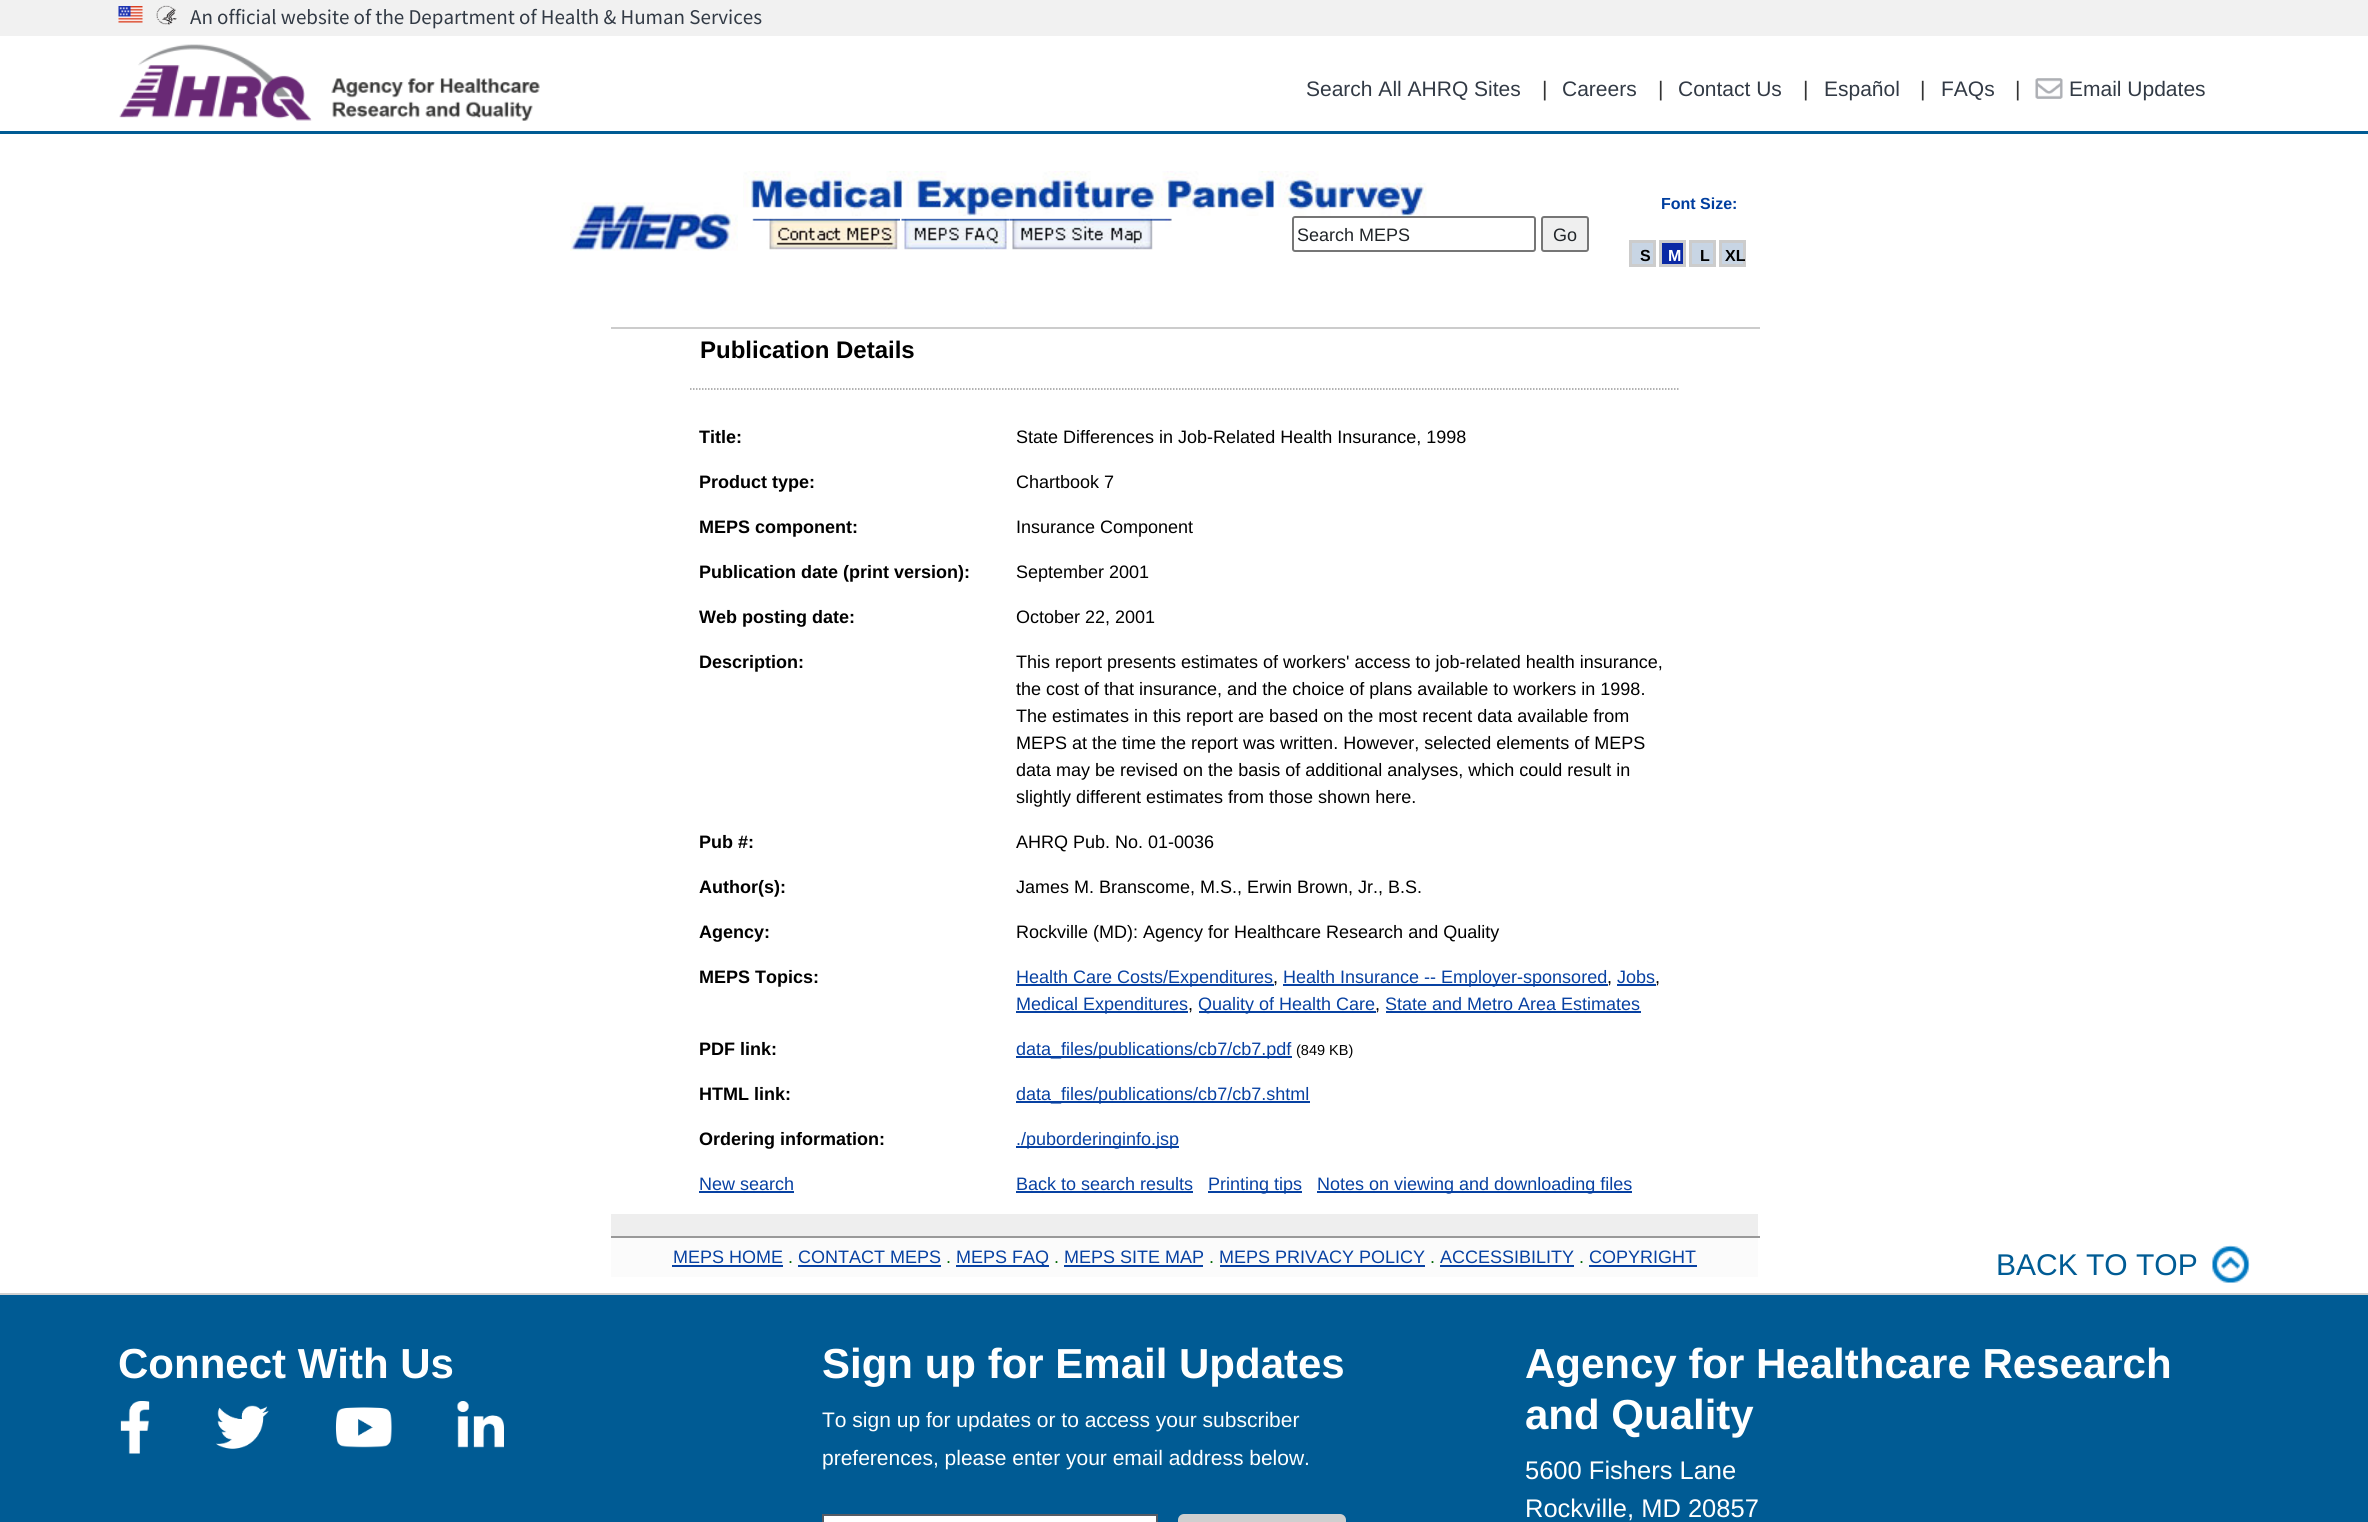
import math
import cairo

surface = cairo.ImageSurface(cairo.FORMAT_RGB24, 2368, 1522)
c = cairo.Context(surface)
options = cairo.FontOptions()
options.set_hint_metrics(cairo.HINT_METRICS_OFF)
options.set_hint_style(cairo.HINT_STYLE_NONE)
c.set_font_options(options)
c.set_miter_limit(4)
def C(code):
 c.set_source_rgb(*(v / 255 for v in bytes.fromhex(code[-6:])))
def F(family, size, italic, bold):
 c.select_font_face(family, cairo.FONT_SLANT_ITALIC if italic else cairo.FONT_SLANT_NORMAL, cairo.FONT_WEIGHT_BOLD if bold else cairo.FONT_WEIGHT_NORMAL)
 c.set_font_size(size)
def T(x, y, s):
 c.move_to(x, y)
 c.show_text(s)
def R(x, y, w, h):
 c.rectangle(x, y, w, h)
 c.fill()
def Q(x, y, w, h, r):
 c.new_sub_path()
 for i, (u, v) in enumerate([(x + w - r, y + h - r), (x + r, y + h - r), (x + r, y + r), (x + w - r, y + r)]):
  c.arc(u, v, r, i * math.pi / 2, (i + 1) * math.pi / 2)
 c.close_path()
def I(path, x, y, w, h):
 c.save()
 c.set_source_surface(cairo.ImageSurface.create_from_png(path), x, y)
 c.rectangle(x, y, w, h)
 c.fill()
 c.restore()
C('ffffff')
c.paint()
C('f1f1f1')
R(0,0,2368,36)
I('1.png',118,6,25,17)
I('2.png',156,5,21,20)
F('Source Sans Pro',21,0,0)
C('323a45')
T(190,24,'An official website of the Department of Health & Human Services')
C('005b94')
R(0,131,2368,3)
I('3.png',119,44,421,77)
F('Liberation Sans',21,0,0)
C('323a45')
T(1306,96,'Search All AHRQ Sites')
C('333333')
T(1542,96,'|')
C('323a45')
T(1562,96,'Careers')
C('333333')
T(1658,96,'|')
C('323a45')
T(1678,96,'Contact Us')
C('333333')
T(1803,96,'|')
C('323a45')
T(1824,96,'Español')
C('333333')
T(1920,96,'|')
C('323a45')
T(1941,96,'FAQs')
C('333333')
T(2015,96,'|')
I('4.png',2035,78,28,21)
C('323a45')
T(2069,96,'Email Updates')
I('5.png',570,202,168,49)
I('6.png',743,171,684,45)
F('Liberation Sans',16,0,1)
C('003e9f')
T(1661,209,'Font Size:')
I('7.png',752,218,148,32)
I('8.png',901,218,109,32)
I('9.png',1009,218,163,32)
Q(1293,217,242,34,2)
C('767676')
c.stroke()
F('Liberation Sans',18,0,0)
C('212529')
T(1297,241,'Search MEPS')
C('efefef')
Q(1542,217,46,34,2)
c.fill_preserve()
C('767676')
c.stroke()
C('212529')
T(1553,241,'Go')
C('c8d5e4')
c.rectangle(1630.5,241.5,24,24)
c.fill_preserve()
C('cccccc')
c.set_line_width(3)
c.stroke()
F('Liberation Sans',16,0,1)
C('000000')
T(1640,261,'S')
C('0a29a5')
c.rectangle(1660.5,241.5,24,24)
c.fill_preserve()
C('cccccc')
c.stroke()
C('ffffff')
T(1668,261,'M')
C('c8d5e4')
c.rectangle(1690.5,241.5,24,24)
c.fill_preserve()
C('cccccc')
c.stroke()
C('000000')
T(1700,261,'L')
C('c8d5e4')
c.rectangle(1720.5,241.5,24,24)
c.fill_preserve()
C('cccccc')
c.stroke()
C('000000')
T(1725,261,'XL')
C('cccccc')
R(611,327,1149,2)
F('Liberation Sans',24,0,1)
C('000000')
T(700,358,'Publication Details')
c.new_path()
c.move_to(690,389)
c.line_to(1678.5,389)
C('999999')
c.set_line_width(1.5)
c.set_dash([1.5,1.5])
c.stroke()
F('Liberation Sans',18,0,1)
C('000000')
T(699,443,'Title:')
F('Liberation Sans',18,0,0)
T(1016,443,'State Differences in Job-Related Health Insurance, 1998')
F('Liberation Sans',18,0,1)
T(699,488,'Product type:')
F('Liberation Sans',18,0,0)
T(1016,488,'Chartbook 7')
F('Liberation Sans',18,0,1)
T(699,533,'MEPS component:')
F('Liberation Sans',18,0,0)
T(1016,533,'Insurance Component')
F('Liberation Sans',18,0,1)
T(699,578,'Publication date (print version):')
F('Liberation Sans',18,0,0)
T(1016,578,'September 2001')
F('Liberation Sans',18,0,1)
T(699,623,'Web posting date:')
F('Liberation Sans',18,0,0)
T(1016,623,'October 22, 2001')
F('Liberation Sans',18,0,1)
T(699,668,'Description:')
F('Liberation Sans',18,0,0)
T(1016,668,'This report presents estimates of workers\' access to job-related health insurance,')
T(1016,695,'the cost of that insurance, and the choice of plans available to workers in 1998.')
T(1016,722,'The estimates in this report are based on the most recent data available from')
T(1016,749,'MEPS at the time the report was written. However, selected elements of MEPS')
T(1016,776,'data may be revised on the basis of additional analyses, which could result in')
T(1016,803,'slightly different estimates from those shown here.')
F('Liberation Sans',18,0,1)
T(699,848,'Pub #:')
F('Liberation Sans',18,0,0)
T(1016,848,'AHRQ Pub. No. 01-0036')
F('Liberation Sans',18,0,1)
T(699,893,'Author(s):')
F('Liberation Sans',18,0,0)
T(1016,893,'James M. Branscome, M.S., Erwin Brown, Jr., B.S.')
F('Liberation Sans',18,0,1)
T(699,938,'Agency:')
F('Liberation Sans',18,0,0)
T(1016,938,'Rockville (MD): Agency for Healthcare Research and Quality')
F('Liberation Sans',18,0,1)
T(699,983,'MEPS Topics:')
C('0741a2')
R(1016,984,258,2)
F('Liberation Sans',18,0,0)
T(1016,983,'Health Care Costs/Expenditures')
C('000000')
T(1273,983,',')
C('0741a2')
R(1283,984,325,2)
T(1283,983,'Health Insurance -- Employer-sponsored')
C('000000')
T(1607,983,',')
C('0741a2')
T(1617,983,'Jobs')
R(1617,984,39,2)
C('000000')
T(1655,983,',')
C('0741a2')
R(1016,1011,172,2)
T(1016,1010,'Medical Expenditures')
C('000000')
T(1188,1010,',')
C('0741a2')
R(1199,1011,177,2)
T(1198,1010,'Quality of Health Care')
C('000000')
T(1375,1010,',')
C('0741a2')
T(1385,1010,'State and Metro Area Estimates')
R(1386,1011,255,2)
F('Liberation Sans',18,0,1)
C('000000')
T(699,1055,'PDF link:')
C('0741a2')
R(1016,1056,276,2)
F('Liberation Sans',18,0,0)
T(1016,1055,'data_files/publications/cb7/cb7.pdf')
F('Liberation Sans',14.5,0,0)
C('000000')
T(1296,1055,'(849 KB)')
F('Liberation Sans',18,0,1)
T(699,1100,'HTML link:')
C('0741a2')
R(1016,1101,294,2)
F('Liberation Sans',18,0,0)
T(1016,1100,'data_files/publications/cb7/cb7.shtml')
F('Liberation Sans',18,0,1)
C('000000')
T(699,1145,'Ordering information:')
C('0741a2')
R(1016,1146,163,2)
F('Liberation Sans',18,0,0)
T(1016,1145,'./puborderinginfo.jsp')
T(699,1190,'New search')
R(699,1191,95,2)
T(1016,1190,'Back to search results')
R(1016,1191,177,2)
R(1208,1191,94,2)
T(1208,1190,'Printing tips')
R(1317,1191,315,2)
T(1317,1190,'Notes on viewing and downloading files')
C('eeeeee')
R(611,1214,1147,22)
C('999999')
R(611,1236,1149,2)
C('fbfbfb')
R(611,1238,1147,39)
C('0741a2')
T(673,1263,'MEPS HOME')
R(672,1265,111,2)
C('006600')
T(788,1263,'.')
C('0741a2')
T(798,1263,'CONTACT MEPS')
R(798,1265,143,2)
C('006600')
T(946,1263,'.')
C('0741a2')
R(956,1265,93,2)
T(956,1263,'MEPS FAQ')
C('006600')
T(1054,1263,'.')
C('0741a2')
T(1064,1263,'MEPS SITE MAP')
R(1064,1265,139,2)
C('006600')
T(1209,1263,'.')
C('0741a2')
T(1219,1263,'MEPS PRIVACY POLICY')
R(1220,1265,205,2)
C('006600')
T(1430,1263,'.')
C('0741a2')
T(1440,1263,'ACCESSIBILITY')
R(1440,1265,134,2)
C('006600')
T(1579,1263,'.')
C('0741a2')
T(1589,1263,'COPYRIGHT')
R(1589,1265,108,2)
F('Liberation Sans',30,0,0)
C('005b94')
T(1996,1275,'BACK TO TOP')
I('10.png',2212,1245,38,38)
C('d1d1d1')
R(0,1293,2368,2)
C('005b94')
R(0,1295,2368,227)
F('Liberation Sans',42,0,1)
C('ffffff')
T(118,1378,'Connect With Us')
I('11.png',120,1401,30,53)
I('12.png',216,1405,53,44)
I('13.png',335,1407,57,41)
I('14.png',457,1401,47,47)
T(822,1378,'Sign up for Email Updates')
F('Liberation Sans',21,0,0)
T(822,1427,'To sign up for updates or to access your subscriber')
T(822,1465,'preferences, please enter your email address below.')
c.rectangle(823,1515,334,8)
c.fill_preserve()
C('565c65')
c.set_line_width(2)
c.set_dash([])
c.stroke()
C('cfcfcf')
Q(1178,1514,168,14,6)
c.fill()
F('Liberation Sans',42,0,1)
C('ffffff')
T(1525,1378,'Agency for Healthcare Research')
T(1525,1429,'and Quality')
F('Liberation Sans',25.5,0,0)
T(1525,1479,'5600 Fishers Lane')
T(1525,1517,'Rockville, MD 20857')
surface.write_to_png('o.png')
